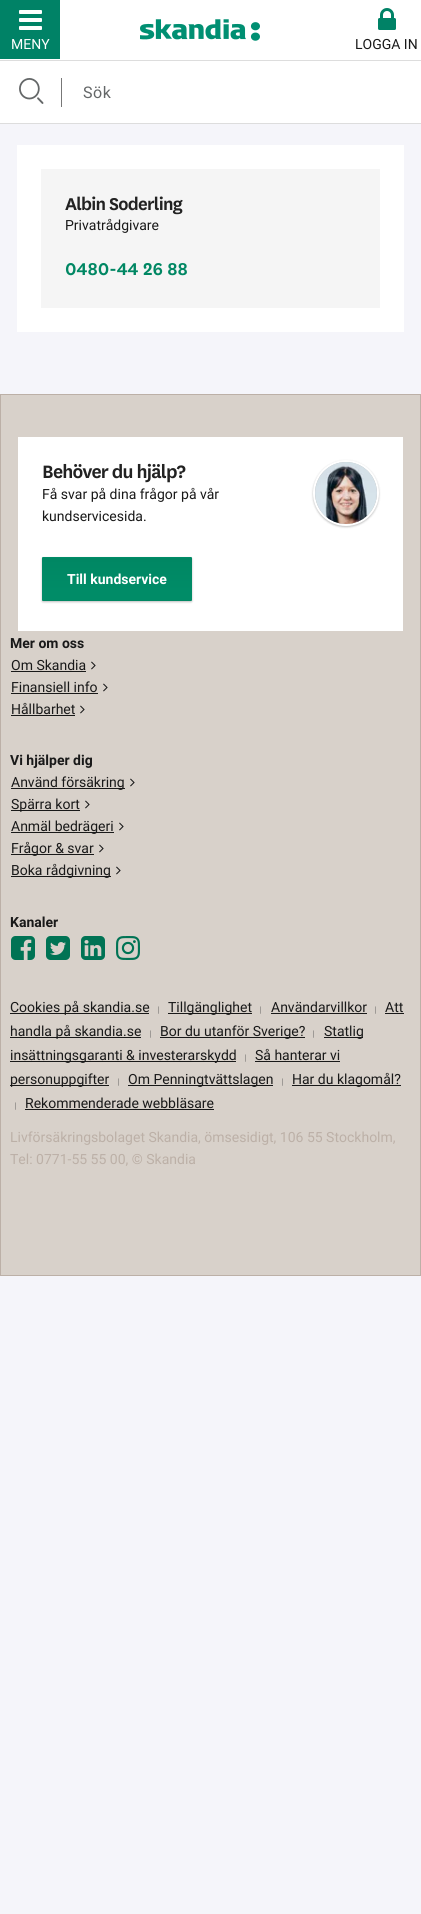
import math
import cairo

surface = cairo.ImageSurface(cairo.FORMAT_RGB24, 421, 1914)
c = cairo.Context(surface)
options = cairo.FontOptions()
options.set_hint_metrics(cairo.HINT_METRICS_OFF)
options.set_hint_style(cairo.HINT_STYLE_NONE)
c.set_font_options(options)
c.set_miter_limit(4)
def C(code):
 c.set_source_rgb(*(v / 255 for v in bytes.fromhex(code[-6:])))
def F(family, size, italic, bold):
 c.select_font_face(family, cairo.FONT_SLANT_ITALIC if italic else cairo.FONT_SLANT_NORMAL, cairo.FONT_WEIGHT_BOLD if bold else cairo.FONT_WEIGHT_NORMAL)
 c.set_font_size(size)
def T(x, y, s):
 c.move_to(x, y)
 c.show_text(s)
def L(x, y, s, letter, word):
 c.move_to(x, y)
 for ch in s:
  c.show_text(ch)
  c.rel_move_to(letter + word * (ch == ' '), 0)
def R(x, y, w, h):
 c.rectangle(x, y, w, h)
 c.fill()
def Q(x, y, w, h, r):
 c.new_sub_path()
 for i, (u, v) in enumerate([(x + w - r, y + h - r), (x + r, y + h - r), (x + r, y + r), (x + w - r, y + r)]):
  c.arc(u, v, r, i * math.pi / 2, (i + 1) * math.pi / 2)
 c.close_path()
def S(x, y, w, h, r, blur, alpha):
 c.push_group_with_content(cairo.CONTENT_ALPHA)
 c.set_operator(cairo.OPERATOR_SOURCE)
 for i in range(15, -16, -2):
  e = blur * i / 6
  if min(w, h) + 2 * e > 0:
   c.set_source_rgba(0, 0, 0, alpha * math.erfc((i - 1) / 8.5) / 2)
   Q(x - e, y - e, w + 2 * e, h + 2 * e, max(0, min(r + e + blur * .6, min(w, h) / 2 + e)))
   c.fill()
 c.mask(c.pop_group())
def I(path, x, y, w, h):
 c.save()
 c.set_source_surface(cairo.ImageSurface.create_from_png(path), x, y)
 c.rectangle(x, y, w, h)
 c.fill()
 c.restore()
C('f5f5fa')
c.paint()
C('ffffff')
R(0,0,421,60)
C('dddddd')
R(0,60,421,1)
I('1.png',140,19,120,22)
C('008266')
R(0,0,60,59)
C('ffffff')
Q(19,10,23,4,1)
c.fill()
Q(19,18,23,4,1)
c.fill()
Q(19,26,23,4,1)
c.fill()
F('Roboto',14,0,0)
T(11,49,'MENY')
I('2.png',378,8,18,22)
C('191919')
T(355,49,'LOGGA IN')
C('dddddd')
R(0,123,421,1)
C('ffffff')
R(0,61,421,62)
I('3.png',19,78,25,26)
C('777777')
R(61,78,1,29)
F('Roboto',16,0,0)
C('646768')
L(83,98,'Sök',.5,0)
C('ffffff')
R(17,145,387,187)
C('f5f5f5')
R(41,169,339,139)
F('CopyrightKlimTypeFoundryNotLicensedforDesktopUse',20,0,1)
C('222222')
L(65,210,'Albin Soderling',-.75,0)
F('Roboto',14,0,0)
C('191919')
T(65,230,'Privatrådgivare')
F('CopyrightKlimTypeFoundryNotLicensedforDesktopUse',20,0,1)
C('008763')
T(65,275,'0480-44 26 88')
C('d8d1ca')
c.rectangle(.5,394.5,420,881)
c.fill_preserve()
C('bcb0a7')
c.set_line_width(1)
c.stroke()
C('ffffff')
R(18,437,385,194)
F('CopyrightKlimTypeFoundryNotLicensedforDesktopUse',21,0,1)
C('222222')
L(42,478,'Behöver du hjälp?',-.8,0)
C('000000')
S(313,461,66,66,33,1,.25)
c.arc(346,493,32,0,2 * math.pi)
C('ffffff')
c.set_line_width(2)
c.stroke()
I('4.png',315,462,62,62)
F('Roboto',14,0,0)
C('191919')
T(42,499,'Få svar på dina frågor på vår')
T(42,521,'kundservicesida.')
C('000000')
S(42,558,150,44,1,1,.25)
gradient = cairo.LinearGradient(117,516,117,558)
gradient.add_color_stop_rgba(0,0,0.529,0.388,1)
gradient.add_color_stop_rgba(.78,0,0.549,0.404,1)
c.set_source(gradient)
c.new_path()
c.move_to(43,557)
c.line_to(191,557)
c.curve_to(191.5,557,192,557.5,192,558)
c.line_to(42,558)
c.curve_to(42,557.5,42.5,557,43,557)
c.close_path()
c.fill()
gradient = cairo.LinearGradient(117,558,117,600)
gradient.add_color_stop_rgba(0,0,0.529,0.388,1)
gradient.add_color_stop_rgba(.78,0,0.549,0.404,1)
c.set_source(gradient)
R(42,558,150,42)
gradient = cairo.LinearGradient(117,600,117,642)
gradient.add_color_stop_rgba(0,0,0.529,0.388,1)
gradient.add_color_stop_rgba(.78,0,0.549,0.404,1)
c.set_source(gradient)
c.new_path()
c.move_to(42,600)
c.line_to(192,600)
c.curve_to(192,600.5,191.5,601,191,601)
c.line_to(43,601)
c.curve_to(42.5,601,42,600.5,42,600)
c.close_path()
c.fill()
F('Roboto',14,0,1)
C('ffffff')
T(67,584,'Till kundservice')
C('191919')
T(10,648,'Mer om oss')
F('Roboto',14,0,0)
T(11,670,'Om Skandia')
R(11,671,75,1)
I('5.png',91,661,5,9)
T(11,692,'Finansiell info')
R(11,693,87,1)
I('5.png',103,683,5,9)
T(11,714,'Hållbarhet')
R(11,715,64,1)
I('5.png',80,705,5,9)
F('Roboto',14,0,1)
T(10,765,'Vi hjälper dig')
R(11,788,114,1)
F('Roboto',14,0,0)
T(11,787,'Använd försäkring')
I('5.png',130,778,5,9)
R(11,810,69,1)
T(11,809,'Spärra kort')
I('5.png',85,800,5,9)
R(11,832,103,1)
T(11,831,'Anmäl bedrägeri')
I('5.png',119,822,5,9)
R(11,854,83,1)
T(11,853,'Frågor & svar')
I('5.png',99,844,5,9)
R(11,876,100,1)
T(11,875,'Boka rådgivning')
I('5.png',116,866,5,9)
F('Roboto',14,0,1)
T(10,927,'Kanaler')
I('6.png',11,936,24,24)
I('7.png',46,936,24,24)
I('8.png',81,936,24,24)
I('9.png',116,936,24,24)
R(10,1013,139,1)
F('Roboto',14,0,0)
T(10,1012,'Cookies på skandia.se')
F('Liberation Serif',8,0,0)
C('444444')
T(158,1012,'|')
C('191919')
R(168,1013,84,1)
F('Roboto',14,0,0)
T(168,1012,'Tillgänglighet')
F('Liberation Serif',8,0,0)
C('444444')
T(260,1012,'|')
F('Roboto',14,0,0)
C('191919')
T(271,1012,'Användarvillkor')
R(271,1013,96,1)
F('Liberation Serif',8,0,0)
C('444444')
T(375,1012,'|')
F('Roboto',14,0,0)
C('191919')
T(385,1012,'Att')
R(385,1013,19,1)
R(10,1037,131,1)
T(10,1036,'handla på skandia.se')
F('Liberation Serif',8,0,0)
C('444444')
T(150,1036,'|')
C('191919')
R(160,1037,145,1)
F('Roboto',14,0,0)
T(160,1036,'Bor du utanför Sverige?')
F('Liberation Serif',8,0,0)
C('444444')
T(313,1036,'|')
C('191919')
R(324,1037,39,1)
F('Roboto',14,0,0)
T(324,1036,'Statlig')
R(10,1061,226,1)
T(10,1060,'insättningsgaranti & investerarskydd')
F('Liberation Serif',8,0,0)
C('444444')
T(245,1060,'|')
F('Roboto',14,0,0)
C('191919')
T(255,1060,'Så hanterar vi')
R(255,1061,85,1)
R(10,1085,99,1)
T(10,1084,'personuppgifter')
F('Liberation Serif',8,0,0)
C('444444')
T(118,1084,'|')
C('191919')
R(128,1085,145,1)
F('Roboto',14,0,0)
T(128,1084,'Om Penningtvättslagen')
F('Liberation Serif',8,0,0)
C('444444')
T(282,1084,'|')
C('191919')
R(292,1085,109,1)
F('Roboto',14,0,0)
T(292,1084,'Har du klagomål?')
F('Liberation Serif',8,0,0)
C('444444')
T(15,1108,'|')
F('Roboto',14,0,0)
C('191919')
T(25,1108,'Rekommenderade webbläsare')
R(25,1109,189,1)
C('bcb0a7')
T(10,1142,'Livförsäkringsbolaget Skandia, ömsesidigt, 106 55 Stockholm,')
T(10,1164,'Tel: 0771-55 55 00, © Skandia')
surface.write_to_png('o.png')
